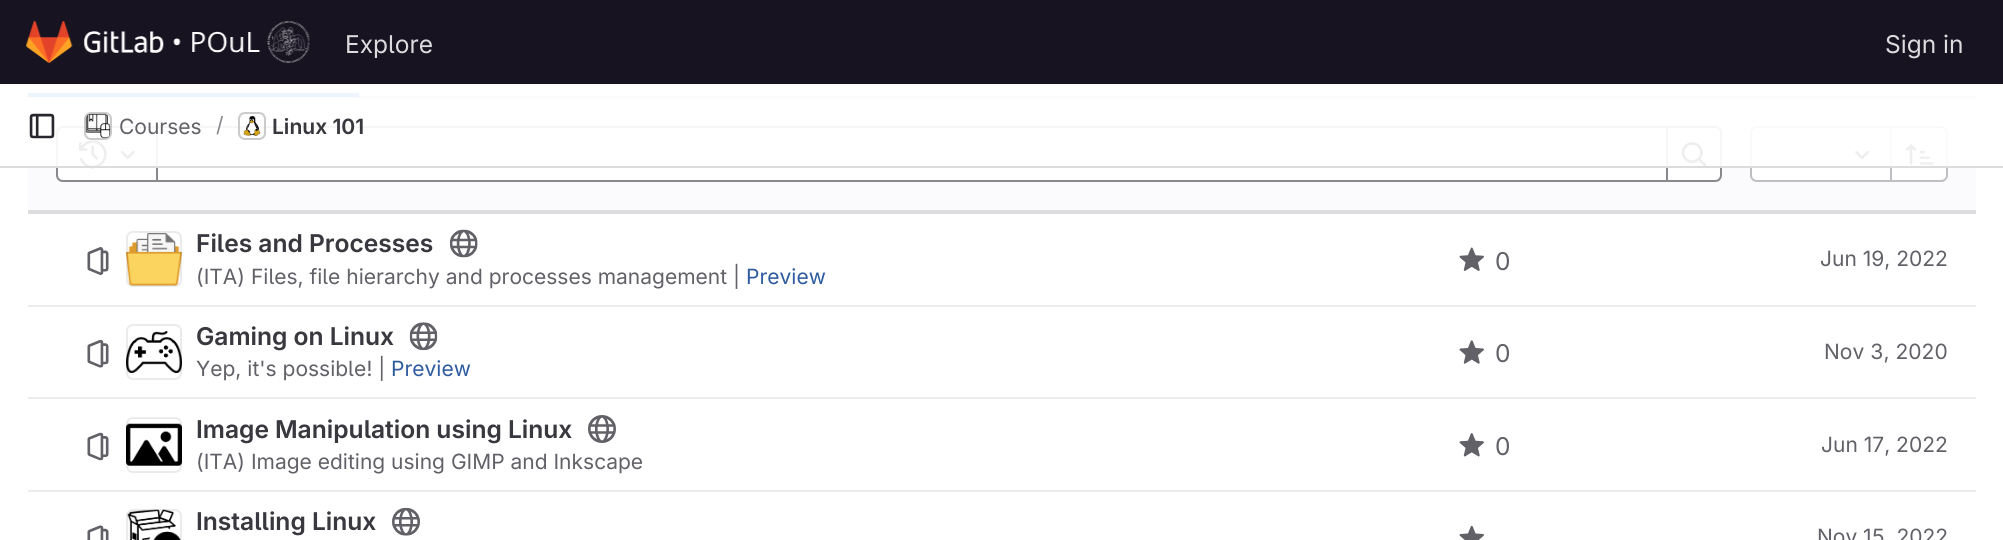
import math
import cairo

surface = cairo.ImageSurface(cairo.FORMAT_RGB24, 2003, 540)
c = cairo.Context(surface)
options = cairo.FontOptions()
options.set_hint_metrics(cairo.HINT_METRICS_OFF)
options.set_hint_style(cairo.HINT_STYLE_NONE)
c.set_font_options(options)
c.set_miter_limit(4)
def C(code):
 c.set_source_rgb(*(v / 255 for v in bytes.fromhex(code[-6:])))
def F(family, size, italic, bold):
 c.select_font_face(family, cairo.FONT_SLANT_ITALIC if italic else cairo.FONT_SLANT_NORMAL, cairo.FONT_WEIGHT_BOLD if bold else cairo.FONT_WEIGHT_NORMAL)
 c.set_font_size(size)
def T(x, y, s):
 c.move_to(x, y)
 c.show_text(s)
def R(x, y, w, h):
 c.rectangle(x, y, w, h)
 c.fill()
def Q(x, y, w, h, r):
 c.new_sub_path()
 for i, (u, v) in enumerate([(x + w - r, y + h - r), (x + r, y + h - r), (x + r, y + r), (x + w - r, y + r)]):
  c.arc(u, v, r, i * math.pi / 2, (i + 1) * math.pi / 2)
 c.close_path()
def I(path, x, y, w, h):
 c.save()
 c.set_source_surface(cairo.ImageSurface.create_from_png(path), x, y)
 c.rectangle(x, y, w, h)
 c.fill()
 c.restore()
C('ffffff')
c.paint()
C('171321')
R(0,0,2003,84)
I('1.png',26,21,284,42)
F('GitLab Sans',24.5,0,0)
C('dcdcde')
T(345,53,'Explore')
T(1885,53,'Sign in')
R(28,96,1948,2)
C('1f75cb')
R(28,93,331,4)
C('fbfafd')
R(28,98,1948,112)
C('ffffff')
c.rectangle(157,127,1510,54)
c.fill_preserve()
C('89888d')
c.stroke()
C('ffffff')
c.new_path()
c.move_to(63,127)
c.line_to(157,127)
c.line_to(157,181)
c.line_to(63,181)
c.curve_to(59.5,181,57,178.5,57,175)
c.line_to(57,133)
c.curve_to(57,129.5,59.5,127,63,127)
c.close_path()
c.fill_preserve()
C('89888d')
c.stroke()
I('5.png',78,140,29,29)
I('6.png',120,150,15,10)
C('ffffff')
c.new_path()
c.move_to(1667,127)
c.line_to(1715,127)
c.curve_to(1718.5,127,1721,129.5,1721,133)
c.line_to(1721,175)
c.curve_to(1721,178.5,1718.5,181,1715,181)
c.line_to(1667,181)
c.close_path()
c.fill_preserve()
C('89888d')
c.stroke()
I('7.png',1681,142,26,24)
C('ffffff')
c.new_path()
c.move_to(1757,128)
c.line_to(1890,128)
c.line_to(1890,180)
c.line_to(1757,180)
c.curve_to(1754,180,1752,178,1752,175)
c.line_to(1752,133)
c.curve_to(1752,130,1754,128,1757,128)
c.close_path()
c.fill()
C('bfbfc3')
c.set_fill_rule(cairo.FILL_RULE_EVEN_ODD)
c.new_path()
c.move_to(1757,126)
c.line_to(1890,126)
c.line_to(1890,182)
c.line_to(1757,182)
c.curve_to(1753,182,1750,179,1750,175)
c.line_to(1750,133)
c.curve_to(1750,129,1753,126,1757,126)
c.close_path()
c.move_to(1757,128)
c.line_to(1890,128)
c.line_to(1890,180)
c.line_to(1757,180)
c.curve_to(1754,180,1752,178,1752,175)
c.line_to(1752,133)
c.curve_to(1752,130,1754,128,1757,128)
c.close_path()
c.fill()
I('8.png',1855,150,14,10)
C('ffffff')
c.new_path()
c.move_to(1892,128)
c.line_to(1941,128)
c.curve_to(1944,128,1946,130,1946,133)
c.line_to(1946,175)
c.curve_to(1946,178,1944,180,1941,180)
c.line_to(1892,180)
c.close_path()
c.fill()
C('bfbfc3')
c.new_path()
c.move_to(1892,126)
c.line_to(1941,126)
c.curve_to(1945,126,1948,129,1948,133)
c.line_to(1948,175)
c.curve_to(1948,179,1945,182,1941,182)
c.line_to(1892,182)
c.close_path()
c.move_to(1892,128)
c.line_to(1941,128)
c.curve_to(1944,128,1946,130,1946,133)
c.line_to(1946,175)
c.curve_to(1946,178,1944,180,1941,180)
c.line_to(1892,180)
c.close_path()
c.fill()
R(1890,126,2,56)
I('9.png',1905,144,29,21)
c.set_source_rgba(1,1,1,0.92)
R(28,93,1948,73)
C('dcdcde')
R(0,166,2003,2)
I('2.png',29,113,26,26)
Q(85,113,26,26,6)
c.stroke()
I('3.png',85,113,26,26)
Q(85,113,26,26,6)
c.set_source_rgba(0.02,0.02,0.024,0.08)
c.stroke()
F('GitLab Sans',21,0,0)
C('626168')
T(119,134,'Courses')
C('89888d')
T(216,132,'/')
Q(239,113,26,26,6)
C('dcdcde')
c.stroke()
I('4.png',243,116,18,20)
Q(239,113,26,26,6)
c.set_source_rgba(0.02,0.02,0.024,0.08)
c.stroke()
F('GitLab Sans SemiBold',21,0,0)
C('3a383f')
T(272,134,'Linux 101')
C('dcdcde')
R(28,210,1948,4)
C('ececef')
R(28,305,1948,2)
I('10.png',87,247,22,28)
I('11.png',126,233,56,53)
Q(127,232,54,54,6)
c.set_source_rgba(0.02,0.02,0.024,0.08)
c.stroke()
F('GitLab Sans SemiBold',24.5,0,0)
C('3a383f')
T(196,252,'Files and Processes')
I('12.png',450,229,28,29)
F('GitLab Sans',21,0,0)
C('626168')
T(196,284,'(ITA) Files, file hierarchy and processes management |')
C('2f5ca0')
T(746,284,'Preview')
I('13.png',1459,247,25,24)
F('GitLab Sans',24.5,0,0)
C('626168')
T(1495,270,'0')
F('GitLab Sans',21,0,0)
T(1820,266,'Jun 19, 2022')
C('ececef')
R(28,397,1948,2)
I('14.png',87,339,22,29)
I('15.png',126,331,56,42)
Q(127,325,54,54,6)
c.set_source_rgba(0.02,0.02,0.024,0.08)
c.stroke()
F('GitLab Sans SemiBold',24.5,0,0)
C('3a383f')
T(196,345,'Gaming on Linux')
I('16.png',409,322,29,29)
F('GitLab Sans',21,0,0)
C('626168')
T(196,376,'Yep, it\'s possible! |')
C('2f5ca0')
T(391,376,'Preview')
I('17.png',1459,340,25,24)
F('GitLab Sans',24.5,0,0)
C('626168')
T(1495,362,'0')
F('GitLab Sans',21,0,0)
T(1824,359,'Nov 3, 2020')
C('ececef')
R(28,490,1948,2)
I('18.png',87,432,22,29)
I('19.png',126,423,56,43)
Q(127,418,54,54,6)
c.set_source_rgba(0.02,0.02,0.024,0.08)
c.stroke()
F('GitLab Sans SemiBold',24.5,0,0)
C('3a383f')
T(196,438,'Image Manipulation using Linux')
I('20.png',588,415,28,28)
F('GitLab Sans',21,0,0)
C('626168')
T(196,469,'(ITA) Image editing using GIMP and Inkscape')
I('21.png',1459,433,25,24)
F('GitLab Sans',24.5,0,0)
T(1495,455,'0')
F('GitLab Sans',21,0,0)
T(1821,452,'Jun 17, 2022')
I('22.png',87,525,22,15)
I('23.png',127,509,54,31)
Q(127,510,54,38,6)
c.set_source_rgba(0.02,0.02,0.024,0.08)
c.stroke()
F('GitLab Sans SemiBold',24.5,0,0)
C('3a383f')
T(196,530,'Installing Linux')
I('24.png',392,507,28,29)
I('25.png',1459,525,25,15)
F('GitLab Sans',21,0,0)
C('626168')
T(1817,544,'Nov 15, 2022')
surface.write_to_png('o.png')
